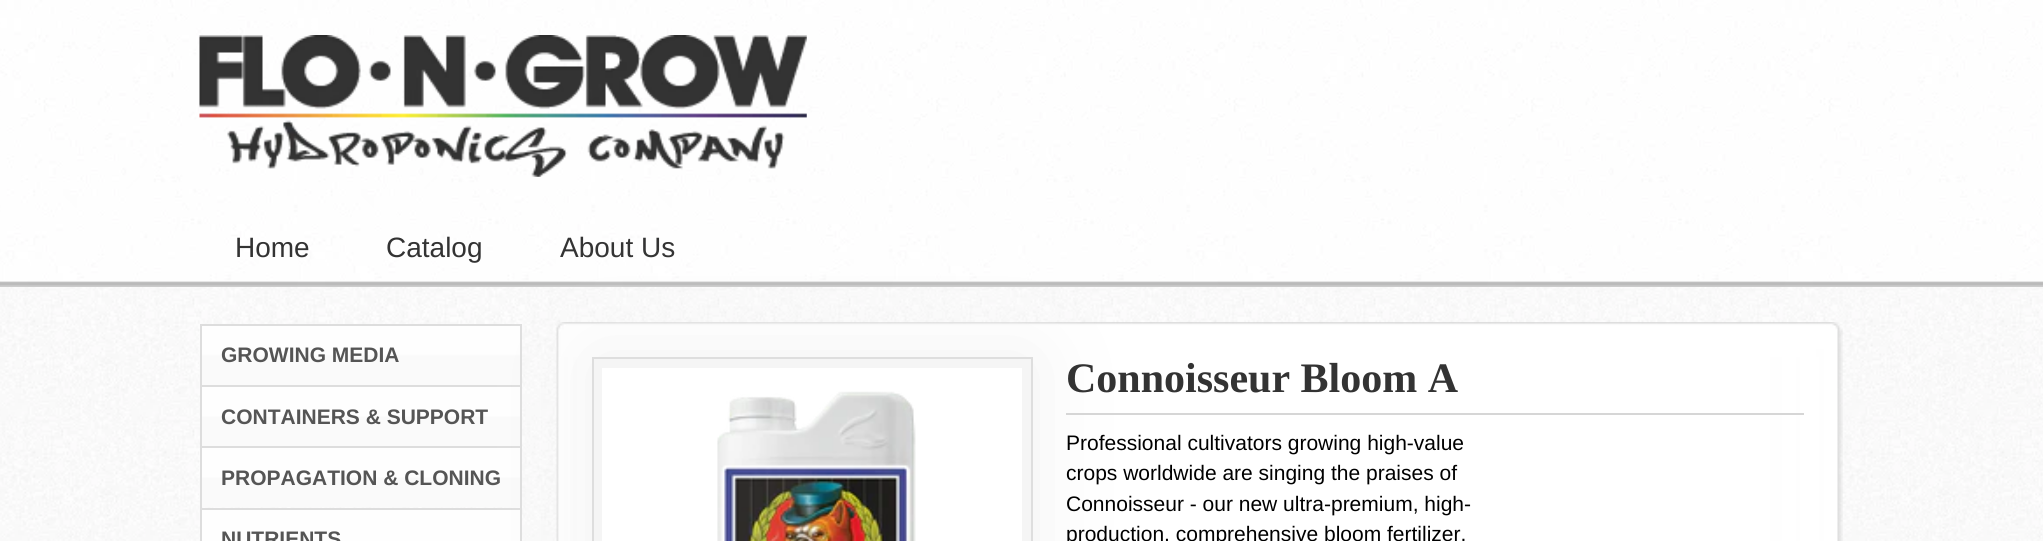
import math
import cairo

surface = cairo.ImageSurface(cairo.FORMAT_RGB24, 2043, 541)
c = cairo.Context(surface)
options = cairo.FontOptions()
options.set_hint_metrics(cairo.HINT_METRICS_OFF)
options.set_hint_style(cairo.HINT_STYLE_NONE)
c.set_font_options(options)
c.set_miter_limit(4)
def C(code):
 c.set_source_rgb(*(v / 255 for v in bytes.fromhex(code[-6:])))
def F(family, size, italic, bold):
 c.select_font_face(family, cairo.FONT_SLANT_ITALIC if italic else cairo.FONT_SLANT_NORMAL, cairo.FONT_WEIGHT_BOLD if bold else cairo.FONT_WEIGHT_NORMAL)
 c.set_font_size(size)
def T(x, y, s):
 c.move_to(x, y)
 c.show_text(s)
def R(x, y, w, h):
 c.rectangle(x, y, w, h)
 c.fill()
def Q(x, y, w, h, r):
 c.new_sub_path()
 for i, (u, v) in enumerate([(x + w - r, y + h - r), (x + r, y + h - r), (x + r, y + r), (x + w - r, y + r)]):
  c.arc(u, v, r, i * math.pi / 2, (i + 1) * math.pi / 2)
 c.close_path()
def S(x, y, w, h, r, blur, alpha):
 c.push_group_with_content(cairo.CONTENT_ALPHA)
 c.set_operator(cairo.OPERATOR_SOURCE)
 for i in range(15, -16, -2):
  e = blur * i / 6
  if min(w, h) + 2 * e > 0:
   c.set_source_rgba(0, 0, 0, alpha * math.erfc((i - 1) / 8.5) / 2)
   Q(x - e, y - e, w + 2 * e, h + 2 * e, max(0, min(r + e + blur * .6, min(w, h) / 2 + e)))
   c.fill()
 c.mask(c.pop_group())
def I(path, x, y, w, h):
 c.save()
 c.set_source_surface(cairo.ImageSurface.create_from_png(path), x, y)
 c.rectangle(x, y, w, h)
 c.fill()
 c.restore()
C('ffffff')
c.paint()
I('1.png',0,287,2043,254)
I('2.png',0,0,2043,287)
I('3.png',199,35,608,142)
F('Liberation Sans',28,0,0)
C('333333')
T(235,257,'Home')
T(386,257,'Catalog')
T(560,257,'About Us')
I('4.png',199,325,321,60)
C('dddddd')
R(200,324,322,2)
R(520,324,2,61)
R(200,324,2,61)
F('Liberation Sans',21,0,1)
C('555555')
T(221,362,'GROWING MEDIA')
I('5.png',202,387,318,59)
C('dddddd')
R(200,385,322,2)
R(520,385,2,61)
R(200,385,2,61)
C('555555')
T(221,424,'CONTAINERS & SUPPORT')
I('6.png',199,448,321,59)
C('dddddd')
R(200,446,322,2)
R(520,446,2,62)
R(200,446,2,62)
C('555555')
T(221,485,'PROPAGATION & CLONING')
C('fefefe')
R(202,510,318,31)
C('dddddd')
R(200,508,322,2)
R(520,508,2,33)
R(200,508,2,33)
C('555555')
T(221,546,'NUTRIENTS')
I('7.png',556,322,1287,35)
I('8.png',556,357,1287,184)
C('f2f2f2')
S(592,357,441,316,0,44,1)
C('f5f5f5')
c.rectangle(593,358,439,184)
c.fill_preserve()
C('dedede')
c.stroke()
C('ffffff')
R(602,368,420,173)
I('9.png',717,391,199,150)
F('Liberation Serif',42,0,1)
C('333333')
T(1066,392,'Connoisseur Bloom A')
C('d6d6d6')
R(1066,413,738,2)
F('Liberation Sans',21,0,0)
C('000000')
T(1066,450,'Professional cultivators growing high-value')
T(1066,480,'crops worldwide are singing the praises of')
T(1066,511,'Connoisseur - our new ultra-premium, high-')
T(1066,541,'production, comprehensive bloom fertilizer.')
surface.write_to_png('o.png')
